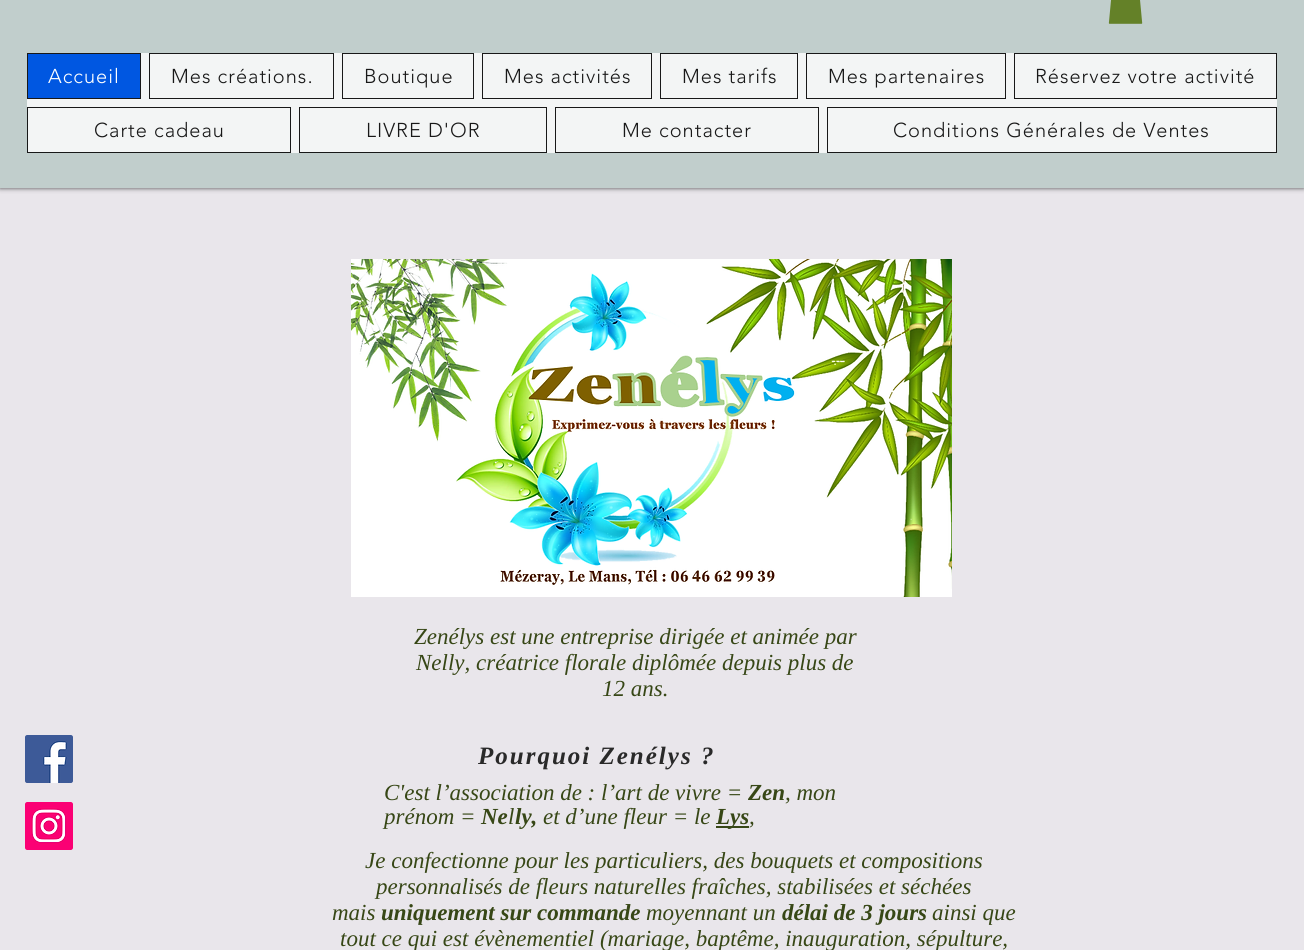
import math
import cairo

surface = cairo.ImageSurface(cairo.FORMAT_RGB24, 1304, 950)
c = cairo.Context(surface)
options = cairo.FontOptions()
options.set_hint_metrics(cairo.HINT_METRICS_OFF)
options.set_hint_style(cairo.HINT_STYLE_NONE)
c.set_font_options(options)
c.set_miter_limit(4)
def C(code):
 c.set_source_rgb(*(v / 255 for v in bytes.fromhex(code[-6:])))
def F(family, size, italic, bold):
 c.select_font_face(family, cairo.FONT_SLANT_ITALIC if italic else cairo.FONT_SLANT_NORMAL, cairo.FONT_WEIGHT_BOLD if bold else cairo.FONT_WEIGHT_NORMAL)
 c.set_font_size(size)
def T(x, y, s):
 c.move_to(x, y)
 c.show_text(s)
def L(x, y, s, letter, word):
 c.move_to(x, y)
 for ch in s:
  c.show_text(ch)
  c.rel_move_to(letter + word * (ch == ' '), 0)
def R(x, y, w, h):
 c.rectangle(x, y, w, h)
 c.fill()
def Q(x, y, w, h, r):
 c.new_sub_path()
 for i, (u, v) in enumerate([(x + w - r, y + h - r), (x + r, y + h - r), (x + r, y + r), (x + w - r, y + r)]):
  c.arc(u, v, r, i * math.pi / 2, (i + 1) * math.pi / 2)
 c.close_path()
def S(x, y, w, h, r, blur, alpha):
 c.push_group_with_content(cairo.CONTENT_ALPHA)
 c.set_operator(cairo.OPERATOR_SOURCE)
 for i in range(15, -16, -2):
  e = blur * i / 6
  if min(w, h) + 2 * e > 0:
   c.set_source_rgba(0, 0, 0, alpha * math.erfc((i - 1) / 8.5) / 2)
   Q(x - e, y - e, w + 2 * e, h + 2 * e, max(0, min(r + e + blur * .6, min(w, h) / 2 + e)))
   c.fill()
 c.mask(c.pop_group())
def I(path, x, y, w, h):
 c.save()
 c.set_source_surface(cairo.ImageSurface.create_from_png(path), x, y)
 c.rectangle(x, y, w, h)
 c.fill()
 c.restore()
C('e9e6eb')
c.paint()
C('000000')
S(0,0,1304,188,0,2.5,.7)
C('c1cecc')
R(0,0,1304,188)
I('1.png',1108,0,35,24)
C('f3f5f5')
R(27,53,1250,100)
C('0057e1')
c.rectangle(27.5,53.5,113,45)
c.fill_preserve()
C('181818')
c.set_line_width(1)
c.stroke()
F('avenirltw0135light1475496 Light',20,0,0)
C('ffffff')
L(48,83,'Accueil',1,0)
c.rectangle(149.5,53.5,184,45)
C('181818')
c.stroke()
L(171,83,'Mes créations.',1,0)
c.rectangle(342.5,53.5,131,45)
c.stroke()
L(364,83,'Boutique',1,0)
c.rectangle(482.5,53.5,169,45)
c.stroke()
L(504,83,'Mes activités',1,0)
c.rectangle(660.5,53.5,137,45)
c.stroke()
L(682,83,'Mes tarifs',1,0)
c.rectangle(806.5,53.5,199,45)
c.stroke()
L(828,83,'Mes partenaires',1,0)
c.rectangle(1014.5,53.5,262,45)
c.stroke()
L(1035,83,'Réservez votre activité',1,0)
c.rectangle(27.5,107.5,263,45)
c.stroke()
L(94,137,'Carte cadeau',1,0)
c.rectangle(299.5,107.5,247,45)
c.stroke()
L(366,137,'LIVRE D\'OR',1,0)
c.rectangle(555.5,107.5,263,45)
c.stroke()
L(622,137,'Me contacter',1,0)
c.rectangle(827.5,107.5,449,45)
c.stroke()
L(893,137,'Conditions Générales de Ventes',1,0)
I('2.png',25,735,48,48)
I('3.png',25,802,48,48)
I('4.png',351,259,601,338)
F('Liberation Serif',23,1,0)
C('374716')
T(414,644,'Zenélys est une entreprise dirigée et animée par')
T(416,670,'Nelly, créatrice florale diplômée depuis plus de')
T(602,696,'12 ans.')
T(384,800,'C\'est l’association de : l’art de vivre =')
F('Liberation Serif',23,1,1)
T(748,800,'Zen')
F('Liberation Serif',23,1,0)
T(785,800,', mon')
T(384,824,'prénom =')
F('Liberation Serif',23,1,1)
T(481,824,'Ne')
F('Liberation Serif',23,1,0)
T(508,824,'l')
F('Liberation Serif',23,1,1)
T(515,824,'ly,')
F('Liberation Serif',23,1,0)
T(543,824,'et d’une fleur = le')
R(716,826,33,2)
F('Liberation Serif',23,1,1)
T(716,824,'Lys')
F('Liberation Serif',23,1,0)
T(749,824,',')
T(365,868,'Je confectionne pour les particuliers, des bouquets et compositions')
T(376,894,'personnalisés de fleurs naturelles fraîches, stabilisées et séchées')
T(332,920,'mais')
F('Liberation Serif',23,1,1)
T(381,920,'uniquement sur commande')
F('Liberation Serif',23,1,0)
T(646,920,'moyennant un')
F('Liberation Serif',23,1,1)
T(782,920,'délai de 3 jours')
F('Liberation Serif',23,1,0)
T(932,920,'ainsi que')
T(340,946,'tout ce qui est évènementiel (mariage, baptême, inauguration, sépulture,')
F('Liberation Serif',25,1,1)
C('292929')
L(478,764,'Pourquoi Zenélys ?',2,0)
surface.write_to_png('o.png')
